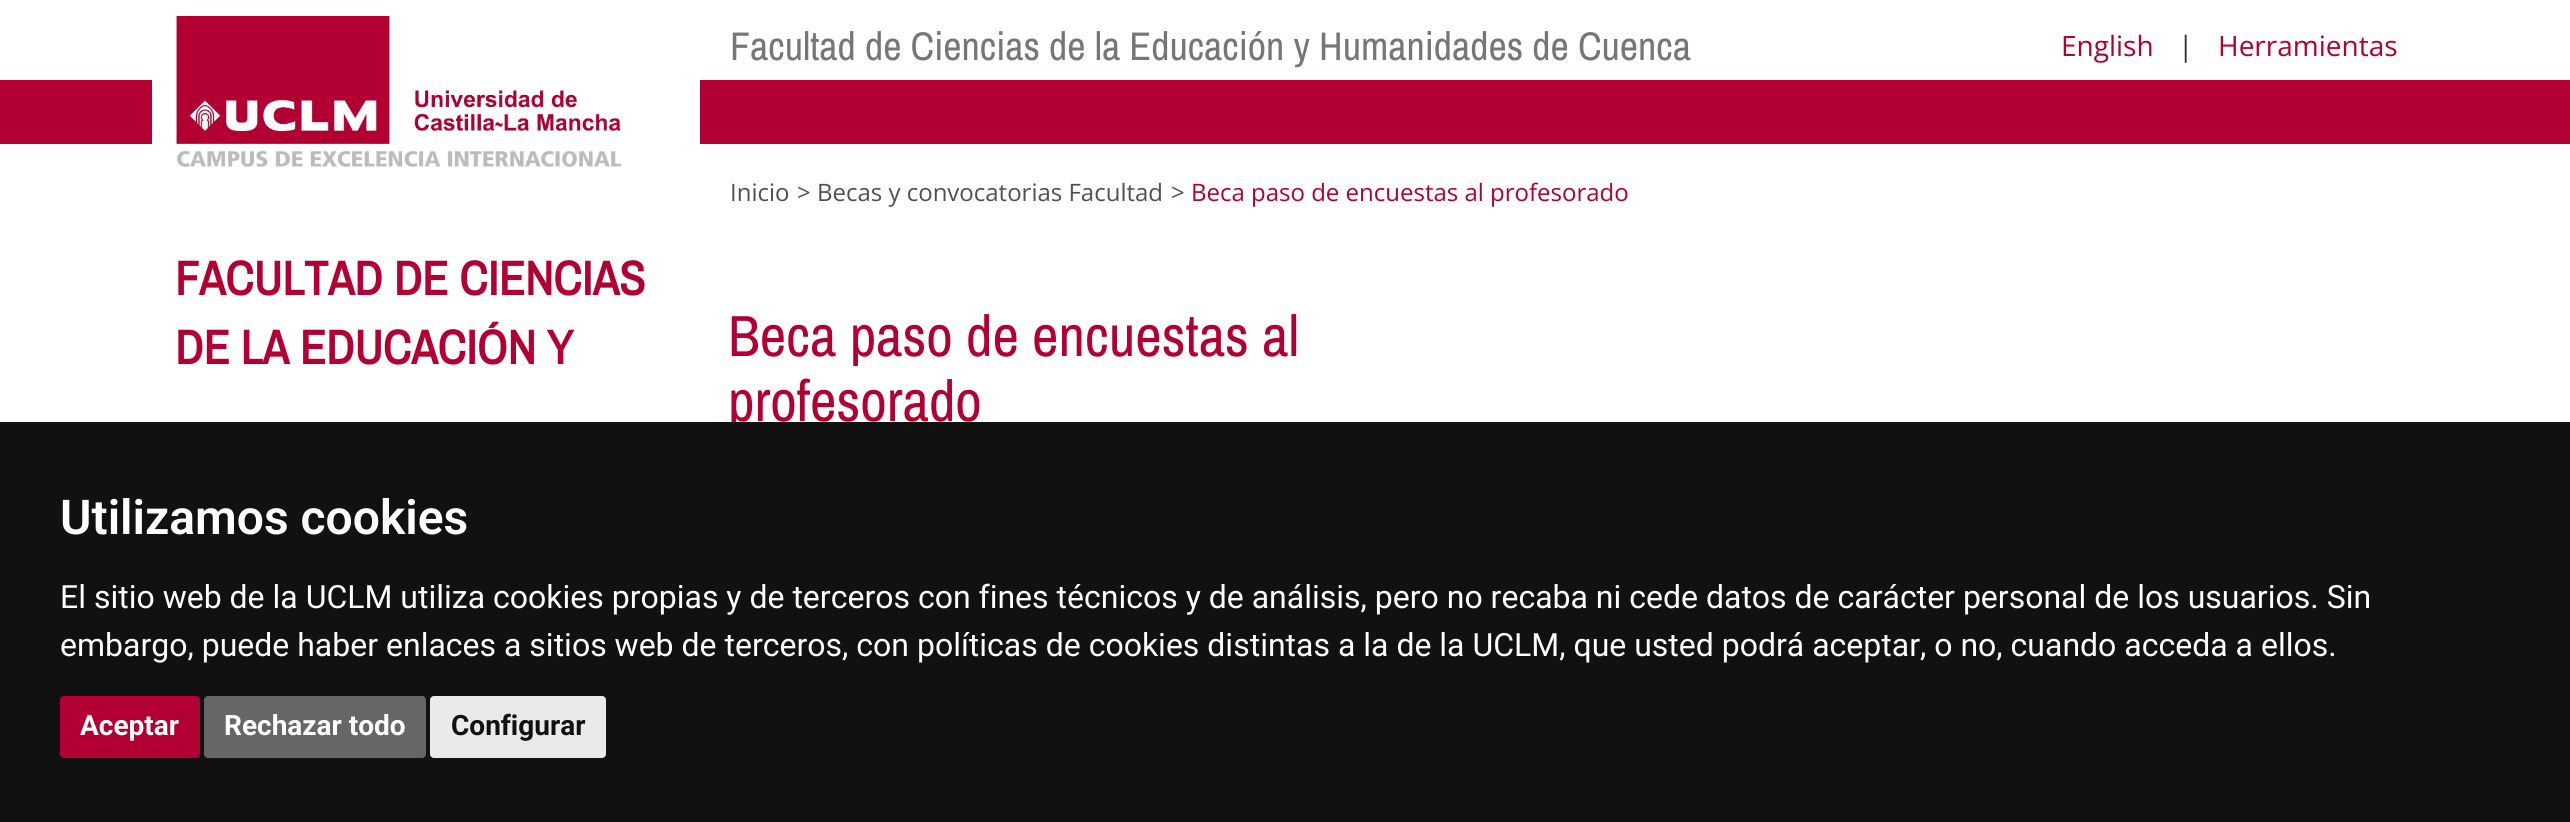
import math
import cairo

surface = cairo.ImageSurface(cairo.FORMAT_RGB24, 2570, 822)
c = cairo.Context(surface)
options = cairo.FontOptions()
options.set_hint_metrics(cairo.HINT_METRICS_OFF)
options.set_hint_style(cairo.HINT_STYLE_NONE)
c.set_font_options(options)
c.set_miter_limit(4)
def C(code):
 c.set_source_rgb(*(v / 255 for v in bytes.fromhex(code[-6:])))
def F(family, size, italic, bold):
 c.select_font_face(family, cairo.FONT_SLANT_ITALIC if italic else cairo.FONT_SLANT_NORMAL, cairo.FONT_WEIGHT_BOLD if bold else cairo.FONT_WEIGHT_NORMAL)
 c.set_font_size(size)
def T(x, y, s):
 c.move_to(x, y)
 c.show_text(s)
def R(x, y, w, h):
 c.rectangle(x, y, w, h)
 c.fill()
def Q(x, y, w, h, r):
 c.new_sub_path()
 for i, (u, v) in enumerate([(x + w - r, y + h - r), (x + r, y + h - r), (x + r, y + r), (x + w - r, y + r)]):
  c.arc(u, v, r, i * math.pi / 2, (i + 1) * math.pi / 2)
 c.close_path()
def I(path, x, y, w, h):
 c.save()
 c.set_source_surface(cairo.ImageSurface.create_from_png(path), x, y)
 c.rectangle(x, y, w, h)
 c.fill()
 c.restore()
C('ffffff')
c.paint()
C('b30033')
R(0,80,2570,64)
C('ffffff')
R(152,80,24,64)
I('1.png',176,16,524,151)
F('Archivo Narrow',40,0,0)
C('767676')
T(730,60,'Facultad de Ciencias de la Educación y Humanidades de Cuenca')
F('Open Sans',28,0,0)
C('b30033')
T(2061,56,'English')
C('333333')
T(2178,56,'|')
C('b30033')
T(2218,56,'Herramientas')
F('Archivo Narrow',48,0,1)
T(175,295,'FACULTAD DE CIENCIAS')
T(175,364,'DE LA EDUCACIÓN Y')
F('Open Sans',24,0,0)
C('505050')
T(730,201,'Inicio')
T(797,201,'> Becas y convocatorias Facultad')
T(1171,201,'>')
C('b30033')
T(1191,201,'Beca paso de encuestas al profesorado')
F('Archivo Narrow',58,0,0)
T(728,356,'Beca paso de encuestas al')
T(728,421,'profesorado')
C('111111')
R(0,422,2570,400)
F('Roboto SemiBold',48,0,0)
C('ffffff')
T(60,534,'Utilizamos cookies')
F('Roboto',32,0,0)
T(60,608,'El sitio web de la UCLM utiliza cookies propias y de terceros con fines técnicos y de análisis, pero no recaba ni cede datos de carácter personal de los usuarios. Sin')
T(60,656,'embargo, puede haber enlaces a sitios web de terceros, con políticas de cookies distintas a la de la UCLM, que usted podrá aceptar, o no, cuando acceda a ellos.')
C('b30033')
Q(60,696,140,62,4)
c.fill()
F('Roboto',28,0,1)
C('ffffff')
T(80,735,'Aceptar')
C('666666')
Q(204,696,222,62,4)
c.fill()
C('ffffff')
T(224,735,'Rechazar todo')
C('eaeaea')
Q(430,696,176,62,4)
c.fill()
C('111111')
T(451,735,'Configurar')
surface.write_to_png('o.png')
